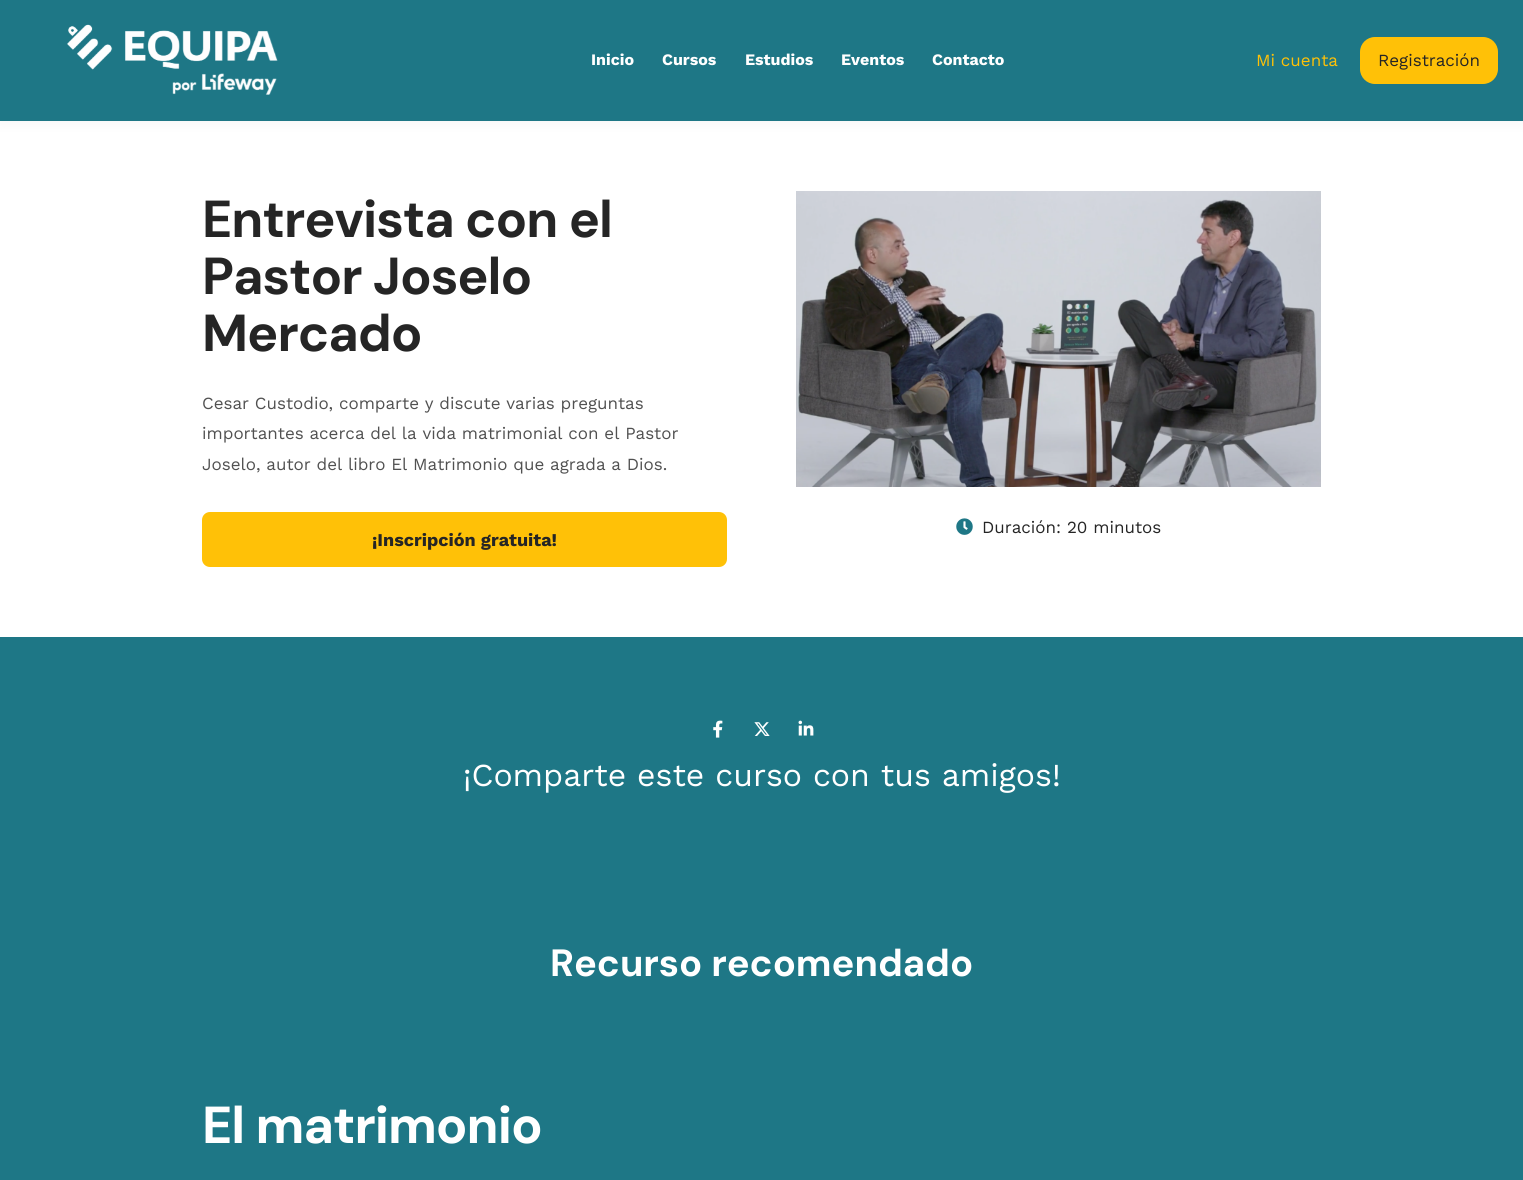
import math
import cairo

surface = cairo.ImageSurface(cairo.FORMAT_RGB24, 1523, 1180)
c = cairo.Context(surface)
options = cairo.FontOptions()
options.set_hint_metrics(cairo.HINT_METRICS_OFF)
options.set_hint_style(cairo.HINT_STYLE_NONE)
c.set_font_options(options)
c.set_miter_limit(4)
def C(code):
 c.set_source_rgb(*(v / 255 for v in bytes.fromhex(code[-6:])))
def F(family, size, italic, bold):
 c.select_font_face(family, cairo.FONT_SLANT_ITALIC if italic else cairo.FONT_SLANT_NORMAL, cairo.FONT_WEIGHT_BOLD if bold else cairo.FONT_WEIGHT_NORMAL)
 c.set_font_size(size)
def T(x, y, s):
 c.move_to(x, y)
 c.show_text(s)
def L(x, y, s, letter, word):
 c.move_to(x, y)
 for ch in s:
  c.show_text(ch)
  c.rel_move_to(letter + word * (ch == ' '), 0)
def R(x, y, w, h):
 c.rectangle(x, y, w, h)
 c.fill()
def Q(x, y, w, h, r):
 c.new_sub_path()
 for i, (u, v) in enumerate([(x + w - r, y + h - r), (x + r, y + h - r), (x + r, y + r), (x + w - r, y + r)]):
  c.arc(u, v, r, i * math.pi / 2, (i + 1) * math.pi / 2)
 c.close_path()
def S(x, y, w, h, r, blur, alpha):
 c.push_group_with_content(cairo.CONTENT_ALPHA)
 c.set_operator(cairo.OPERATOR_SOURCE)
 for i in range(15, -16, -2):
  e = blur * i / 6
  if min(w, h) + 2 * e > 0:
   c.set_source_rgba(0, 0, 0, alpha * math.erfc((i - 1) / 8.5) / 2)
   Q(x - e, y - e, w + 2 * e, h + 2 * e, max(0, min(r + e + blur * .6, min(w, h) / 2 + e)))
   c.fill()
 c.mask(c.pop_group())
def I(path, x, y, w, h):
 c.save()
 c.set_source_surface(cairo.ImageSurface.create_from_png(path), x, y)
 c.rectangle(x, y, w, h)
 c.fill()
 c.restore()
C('ffffff')
c.paint()
C('000000')
S(0,0,1523,121,0,7.5,.05)
C('1e7786')
R(0,0,1523,121)
I('1.png',67,24,211,71)
F('Work Sans',16,0,1)
C('ffffff')
T(591,65,'Inicio')
T(662,65,'Cursos')
T(745,65,'Estudios')
T(841,65,'Eventos')
T(932,65,'Contacto')
F('Work Sans',17,0,0)
C('ffc107')
T(1256,66,'Mi cuenta')
Q(1360,37,138,47,15)
c.fill()
C('252525')
T(1378,66,'Registración')
F('DM Sans',52,0,1)
L(202,237,'Entrevista con el',-1,0)
L(202,294,'Pastor Joselo',-1,0)
L(202,351,'Mercado',-1,0)
F('Work Sans',17,0,0)
C('515151')
T(202,409,'Cesar Custodio, comparte y discute varias preguntas')
T(202,439,'importantes acerca del la vida matrimonial con el Pastor')
T(202,470,'Joselo, autor del libro El Matrimonio que agrada a Dios.')
C('ffc107')
Q(202,512,525,55,8)
c.fill()
F('Work Sans',18,0,1)
C('252525')
T(372,546,'¡Inscripción gratuita!')
I('2.png',796,191,525,296)
I('3.png',956,518,17,17)
F('Work Sans',17,0,0)
T(982,533,'Duración: 20 minutos')
C('1e7786')
R(0,637,1523,543)
I('4.png',713,720,10,18)
I('5.png',754,722,16,14)
I('6.png',798,720,16,16)
F('Work Sans',32,0,0)
C('ffffff')
T(463,786,'¡Comparte este curso con tus amigos!')
F('DM Sans',38,0,1)
T(550,976,'Recurso recomendado')
F('DM Sans',52,0,1)
L(202,1143,'El matrimonio',-1,0)
surface.write_to_png('o.png')
